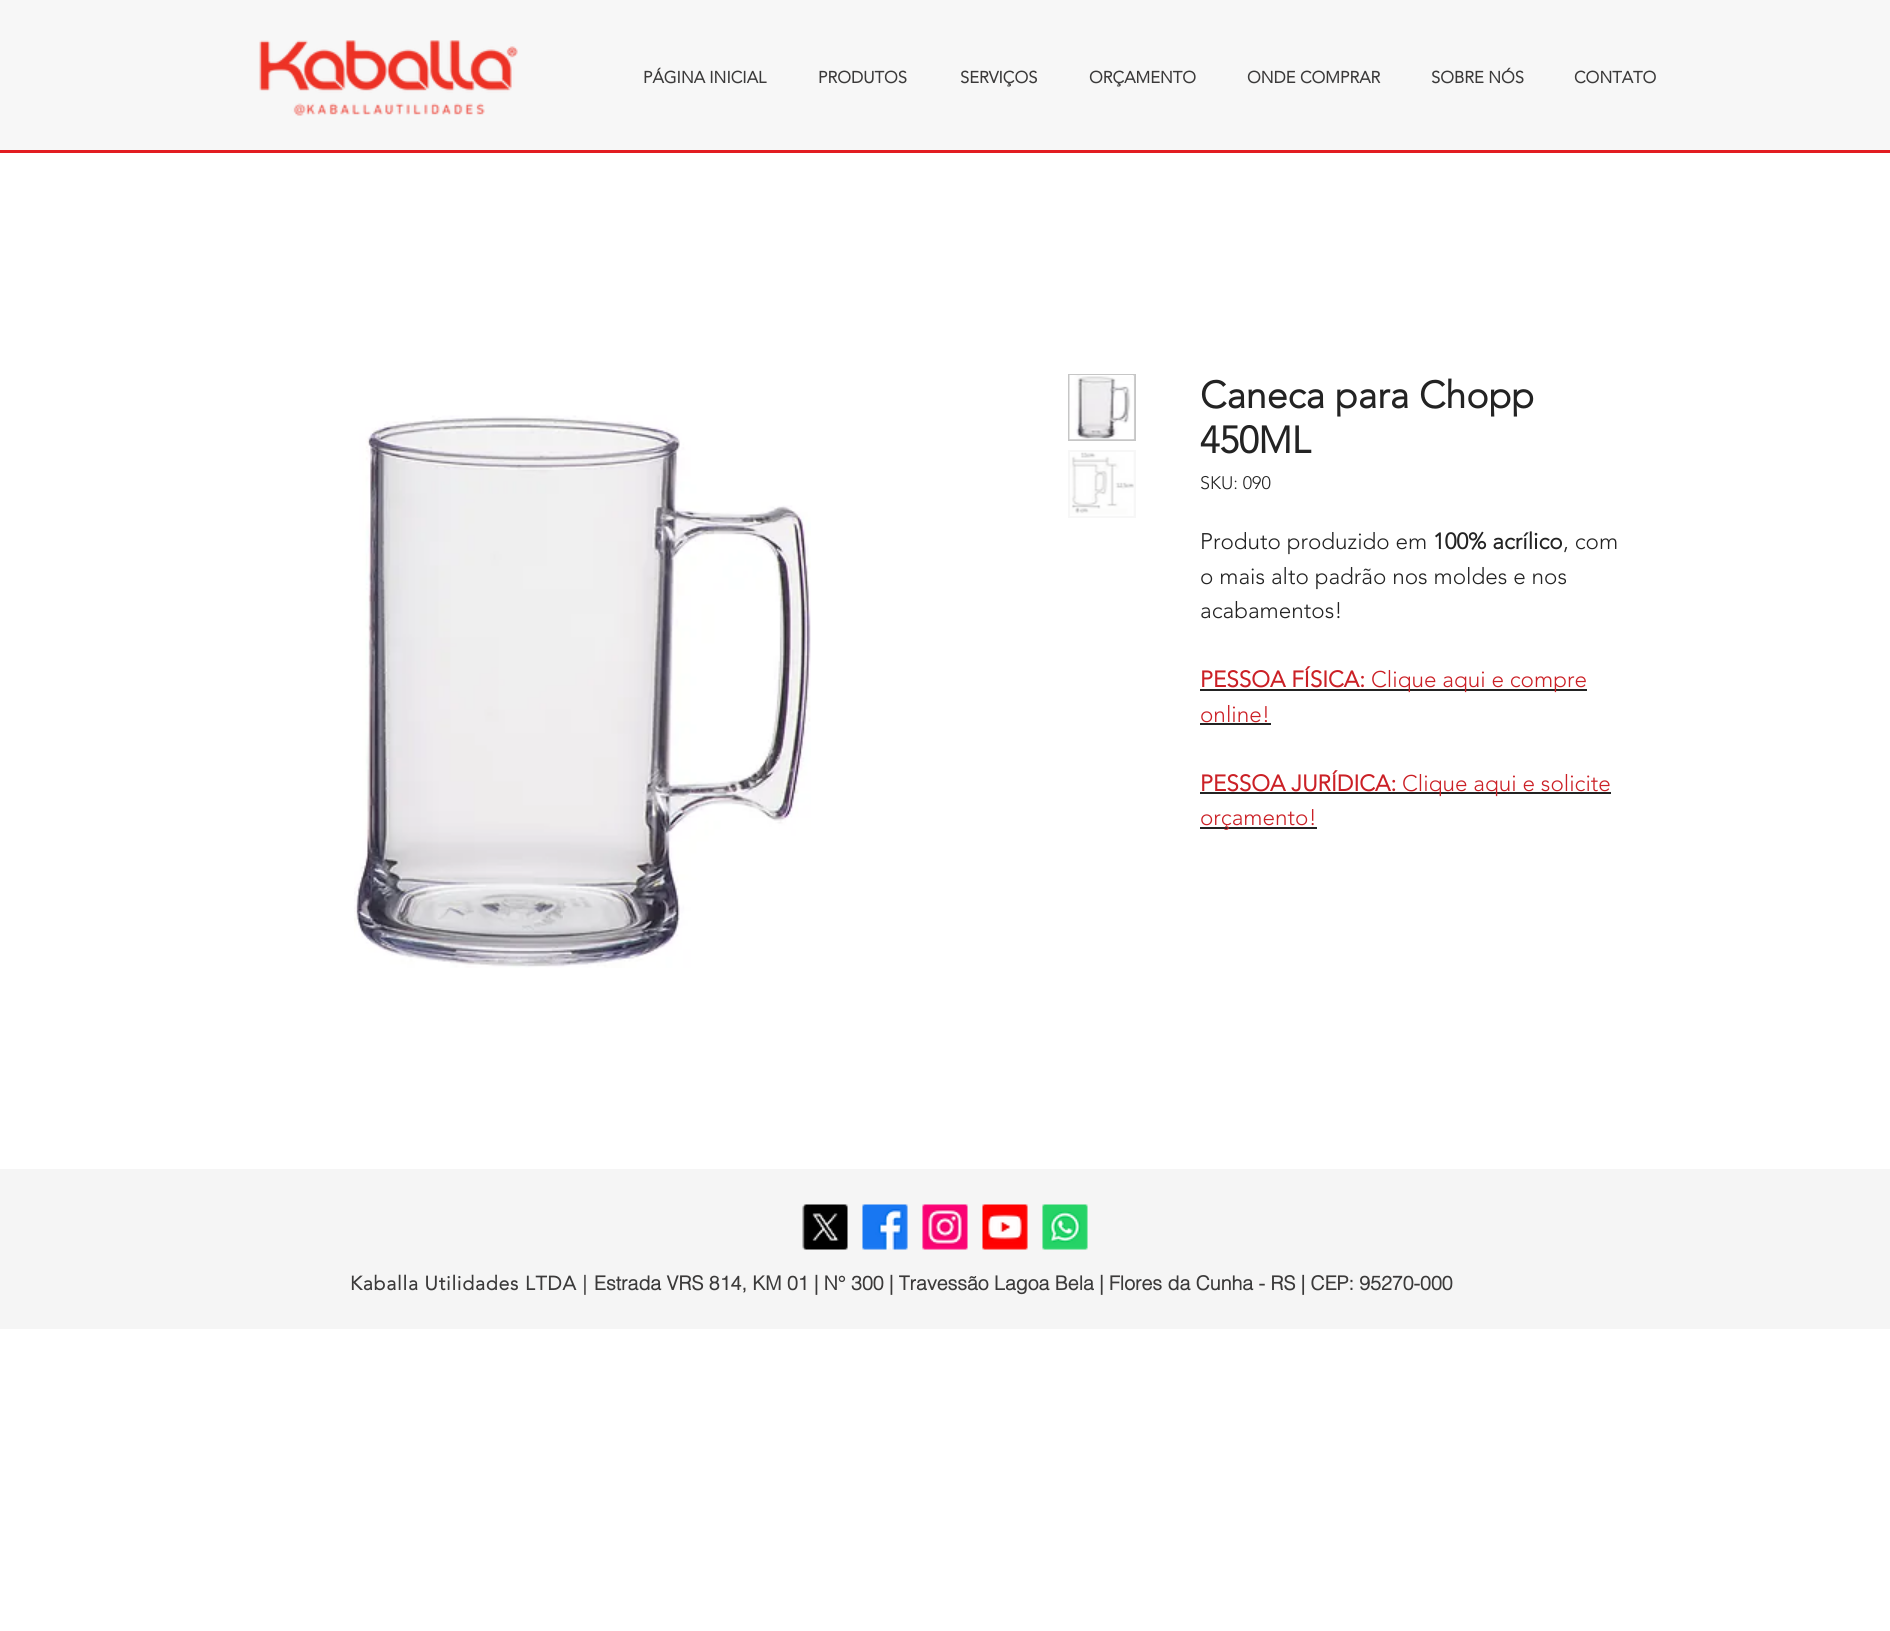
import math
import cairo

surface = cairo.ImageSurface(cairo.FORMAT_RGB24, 1890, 1631)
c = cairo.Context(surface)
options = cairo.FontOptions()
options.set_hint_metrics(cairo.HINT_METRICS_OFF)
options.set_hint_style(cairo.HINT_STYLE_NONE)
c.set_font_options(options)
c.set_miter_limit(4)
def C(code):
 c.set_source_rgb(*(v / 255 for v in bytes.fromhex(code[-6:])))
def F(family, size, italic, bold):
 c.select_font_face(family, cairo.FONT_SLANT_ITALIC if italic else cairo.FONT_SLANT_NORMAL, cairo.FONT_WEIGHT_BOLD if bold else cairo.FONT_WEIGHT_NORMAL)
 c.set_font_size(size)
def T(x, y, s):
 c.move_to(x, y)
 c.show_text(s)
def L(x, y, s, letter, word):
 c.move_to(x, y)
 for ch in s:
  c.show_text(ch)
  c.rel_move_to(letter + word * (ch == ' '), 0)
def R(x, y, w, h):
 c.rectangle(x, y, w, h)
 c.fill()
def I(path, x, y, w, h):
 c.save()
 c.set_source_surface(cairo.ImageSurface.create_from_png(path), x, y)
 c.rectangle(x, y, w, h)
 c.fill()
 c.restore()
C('ffffff')
c.paint()
C('e21c21')
c.set_fill_rule(cairo.FILL_RULE_EVEN_ODD)
c.new_path()
c.move_to(-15,-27)
c.line_to(-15,153)
c.line_to(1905,153)
c.line_to(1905,-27)
c.close_path()
c.move_to(0,0)
c.line_to(0,150)
c.line_to(1890,150)
c.line_to(1890,0)
c.close_path()
c.fill()
C('f7f7f7')
R(0,0,1890,150)
I('1.png',259,40,259,76)
F('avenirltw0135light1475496',16.5,0,1)
C('3b3a3a')
T(643,83,'PÁGINA INICIAL')
T(818,83,'PRODUTOS')
T(960,83,'SERVIÇOS')
T(1089,83,'ORÇAMENTO')
T(1247,83,'ONDE COMPRAR')
T(1431,83,'SOBRE NÓS')
T(1574,83,'CONTATO')
I('2.png',354,415,457,553)
C('f7f7f7')
R(1133,376,1,63)
c.rectangle(1069,375,66,65)
C('c6c6c6')
c.stroke()
I('3.png',1069,375,66,65)
C('f7f7f7')
R(1068,450,68,68)
I('4.png',1070,452,64,64)
F('avenirltw0135light1475496',37.5,0,1)
C('232323')
T(1200,408,'Caneca para Chopp')
T(1200,453,'450ML')
F('avenirltw0135light1475496 Light',18,0,0)
T(1200,489,'SKU: 090')
F('avenirltw0135light1475496 Light',22.5,0,0)
T(1200,549,'Produto produzido em')
F('avenirltw0135light1475496',22.5,0,1)
T(1433,549,'100% acrílico')
F('avenirltw0135light1475496 Light',22.5,0,0)
T(1563,549,', com')
T(1200,584,'o mais alto padrão nos moldes e nos')
T(1200,618,'acabamentos!')
F('avenirltw0135light1475496',22.5,0,1)
C('cb2026')
T(1200,687,'PESSOA FÍSICA:')
C('232323')
R(1200,689,387,2)
F('avenirltw0135light1475496 Light',22.5,0,0)
C('cb2026')
T(1371,687,'Clique aqui e compre')
T(1200,722,'online!')
C('232323')
R(1200,723,71,2)
F('avenirltw0135light1475496',22.5,0,1)
C('cb2026')
T(1200,791,'PESSOA JURÍDICA:')
C('232323')
R(1200,792,411,2)
F('avenirltw0135light1475496 Light',22.5,0,0)
C('cb2026')
T(1402,791,'Clique aqui e solicite')
C('232323')
R(1200,827,117,2)
C('cb2026')
T(1200,825,'orçamento!')
C('f5f5f5')
R(0,1169,1890,160)
I('5.png',802,1204,46,46)
I('6.png',862,1204,46,46)
I('7.png',922,1204,46,46)
I('8.png',982,1204,46,46)
I('9.png',1042,1204,46,46)
F('avenirltw0135light1475496',19.5,0,1)
C('3b3a3a')
L(350,1290,'Kaballa Utilidades LTDA |',.75,0)
F('helvetica',19.5,0,1)
T(594,1290,'Estrada VRS 814, KM 01 | N° 300 | Travessão Lagoa Bela | Flores da Cunha - RS | CEP: 95270-000')
surface.write_to_png('o.png')
